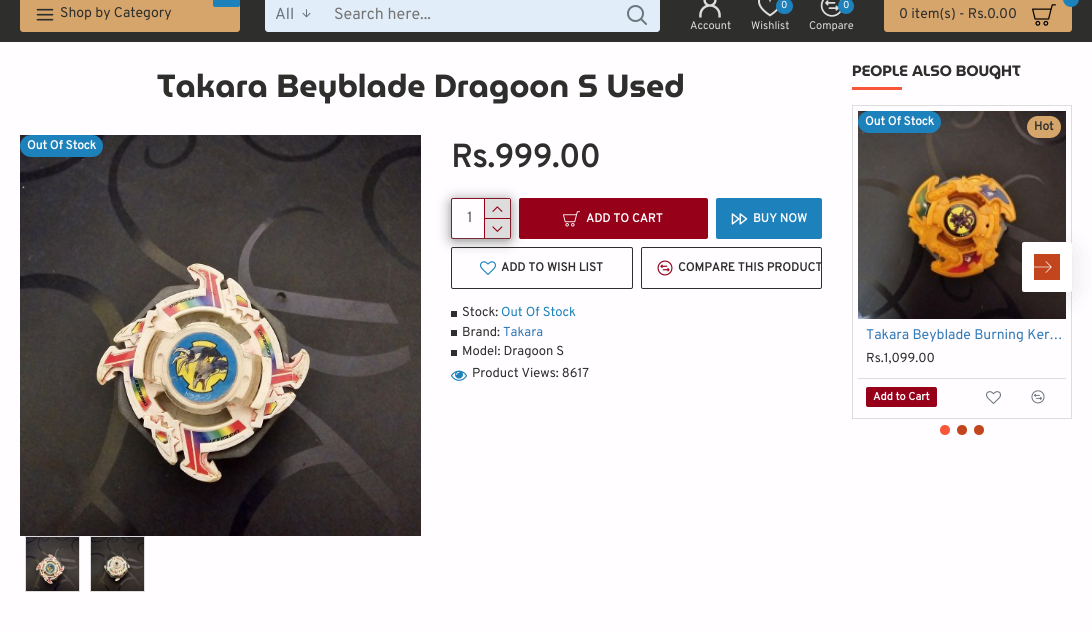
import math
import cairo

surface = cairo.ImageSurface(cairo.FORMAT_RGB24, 1092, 631)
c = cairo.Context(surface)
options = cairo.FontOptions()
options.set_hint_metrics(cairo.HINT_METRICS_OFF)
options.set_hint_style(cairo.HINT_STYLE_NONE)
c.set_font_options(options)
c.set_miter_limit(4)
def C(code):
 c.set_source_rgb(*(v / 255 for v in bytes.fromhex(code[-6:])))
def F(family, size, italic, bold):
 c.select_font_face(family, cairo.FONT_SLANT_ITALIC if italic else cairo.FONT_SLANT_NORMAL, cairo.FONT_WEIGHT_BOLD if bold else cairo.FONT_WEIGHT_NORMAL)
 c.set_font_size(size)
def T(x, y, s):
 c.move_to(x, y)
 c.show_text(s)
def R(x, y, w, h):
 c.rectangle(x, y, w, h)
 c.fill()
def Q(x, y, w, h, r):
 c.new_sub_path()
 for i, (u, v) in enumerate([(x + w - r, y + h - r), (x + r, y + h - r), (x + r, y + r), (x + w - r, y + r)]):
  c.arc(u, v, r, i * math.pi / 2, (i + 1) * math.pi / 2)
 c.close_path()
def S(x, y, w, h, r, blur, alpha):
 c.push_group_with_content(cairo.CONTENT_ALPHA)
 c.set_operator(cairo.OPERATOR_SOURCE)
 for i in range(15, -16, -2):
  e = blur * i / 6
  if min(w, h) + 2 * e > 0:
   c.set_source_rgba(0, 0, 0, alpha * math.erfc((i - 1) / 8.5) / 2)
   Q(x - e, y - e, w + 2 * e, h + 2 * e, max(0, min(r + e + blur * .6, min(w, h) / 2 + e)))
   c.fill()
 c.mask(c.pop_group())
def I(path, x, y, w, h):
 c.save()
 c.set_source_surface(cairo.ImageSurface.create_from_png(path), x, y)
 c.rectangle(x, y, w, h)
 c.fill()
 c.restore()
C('fffdff')
c.paint()
C('2e2e2d')
R(0,0,1092,42)
C('d6a56b')
Q(20,-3,220,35,3)
c.fill()
C('1d82bb')
Q(213,-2,27,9,2)
c.fill()
I('1.png',36,8,18,13)
F('Overpass',14,0,0)
C('2e2e2d')
T(60,17,'Shop by Category')
C('e1eefa')
c.new_path()
c.move_to(268,-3)
c.line_to(322,-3)
c.line_to(322,32)
c.line_to(268,32)
c.curve_to(266.5,32,265,30.5,265,29)
c.line_to(265,0)
c.curve_to(265,-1.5,266.5,-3,268,-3)
c.close_path()
c.fill()
F('Overpass',16,0,0)
C('6d767d')
T(275,19,'All')
I('2.png',302,9,9,9)
C('e1eefa')
R(322,0,293,32)
C('757575')
T(334,19,'Search here...')
C('e1eefa')
c.new_path()
c.move_to(615,-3)
c.line_to(657,-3)
c.curve_to(658.5,-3,660,-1.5,660,0)
c.line_to(660,29)
c.curve_to(660,30.5,658.5,32,657,32)
c.line_to(615,32)
c.close_path()
c.fill()
I('3.png',627,5,20,20)
I('4.png',699,0,22,18)
F('Overpass',11,0,0)
C('dddddd')
T(690,29,'Account')
I('5.png',758,0,20,17)
C('1d82bb')
Q(776,-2,17,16,8)
c.fill()
F('Overpass',10,0,0)
C('fffdff')
T(781,8,'0')
F('Overpass',11,0,0)
C('dddddd')
T(751,29,'Wishlist')
I('6.png',820,0,21,17)
C('1d82bb')
c.arc(846,6,8,0,2 * math.pi)
c.fill()
F('Overpass',10,0,0)
C('fffdff')
T(843,8,'0')
F('Overpass',11,0,0)
C('dddddd')
T(809,29,'Compare')
C('d6a56b')
Q(884,-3,188,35,3)
c.fill()
C('1d82bb')
Q(1063,-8,16,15,8)
c.fill()
F('Overpass',14,0,0)
C('2e2e2d')
T(899,18,'0 item(s) - Rs.0.00')
I('7.png',1032,4,24,22)
F('MuseoModerno Thin',32,0,0)
T(157,97,'Takara Beyblade Dragoon S Used')
I('8.png',20,135,401,401)
C('1d82bb')
Q(20,135,83,22,11)
c.fill()
F('Overpass',12,0,1)
C('fffdff')
T(27,149,'Out Of Stock')
c.rectangle(25.5,536.5,54,55)
C('dddddd')
c.set_line_width(1)
c.stroke()
I('9.png',26,537,53,54)
c.rectangle(90.5,536.5,54,55)
c.stroke()
I('10.png',91,537,53,54)
F('Overpass',32,0,1)
C('2e2e2d')
T(451,167,'Rs.999.00')
Q(451.5,198.5,59,40,1.5)
C('960018')
c.stroke()
C('555555')
S(454,203,54,35,0,7.5,1)
C('fffdff')
Q(452,199,58,39,2)
c.fill()
F('Overpass',15,0,0)
C('555555')
T(467,222,'1')
C('960018')
R(484,199,1,39)
C('dddddd')
R(485,199,25,19)
C('960018')
R(485,218,25,1)
I('11.png',492,206,11,6)
C('dddddd')
R(485,219,25,19)
I('12.png',492,226,11,6)
C('960018')
Q(519,198,189,41,2)
c.fill()
I('13.png',563,211,17,16)
F('Overpass',12,0,1)
C('fffdff')
T(586,222,'ADD TO CART')
C('1d82bb')
Q(716,198,106,41,2)
c.fill()
I('14.png',731,213,17,12)
C('fffdff')
T(753,222,'BUY NOW')
Q(451.5,247.5,181,41,1.5)
C('2e2e2d')
c.stroke()
I('15.png',480,261,16,14)
T(501,271,'ADD TO WISH LIST')
Q(641.5,247.5,180,41,1.5)
c.stroke()
I('16.png',657,260,16,16)
T(678,271,'COMPARE THIS PRODUCT')
R(451,311,6,6)
F('Overpass',13,0,0)
T(462,316,'Stock:')
C('1d82bb')
T(501,316,'Out Of Stock')
C('2e2e2d')
R(451,330,6,6)
T(462,336,'Brand:')
C('337ab7')
T(503,336,'Takara')
C('2e2e2d')
R(451,350,6,6)
T(462,355,'Model: Dragoon S')
I('17.png',451,370,16,11)
T(472,377,'Product Views: 8617')
F('MuseoModerno Thin',15,0,0)
T(852,76,'PEOPLE ALSO BOUGHT')
C('f85639')
R(852,87,50,3)
c.rectangle(852.5,105.5,219,313)
C('dddddd')
c.stroke()
I('18.png',858,111,208,208)
C('1d82bb')
Q(858,111,83,22,11)
c.fill()
F('Overpass',12,0,1)
C('fffdff')
T(865,125,'Out Of Stock')
C('d6a56b')
Q(1027,116,34,22,11)
c.fill()
C('2e2e2d')
T(1034,130,'Hot')
F('Overpass',14,0,0)
C('337ab7')
T(866,339,'Takara Beyblade Burning Ker…')
F('Overpass',13,0,0)
C('2e2e2d')
T(866,362,'Rs.1,099.00')
C('dddddd')
R(858,378,208,1)
C('960018')
Q(866,387,71,20,2)
c.fill()
F('Overpass',11,0,1)
C('fffdff')
T(873,400,'Add to Cart')
I('19.png',986,391,15,13)
I('20.png',1031,390,14,14)
C('000000')
S(1027,252,40,40,0,15,.15)
C('ffffff')
Q(1022,242,50,50,2)
c.fill()
I('21.png',1034,254,26,26)
C('f85639')
c.arc(945,430,5,0,2 * math.pi)
c.fill()
C('c2451e')
c.arc(962,430,5,0,2 * math.pi)
c.fill()
c.arc(979,430,5,0,2 * math.pi)
c.fill()
surface.write_to_png('o.png')
